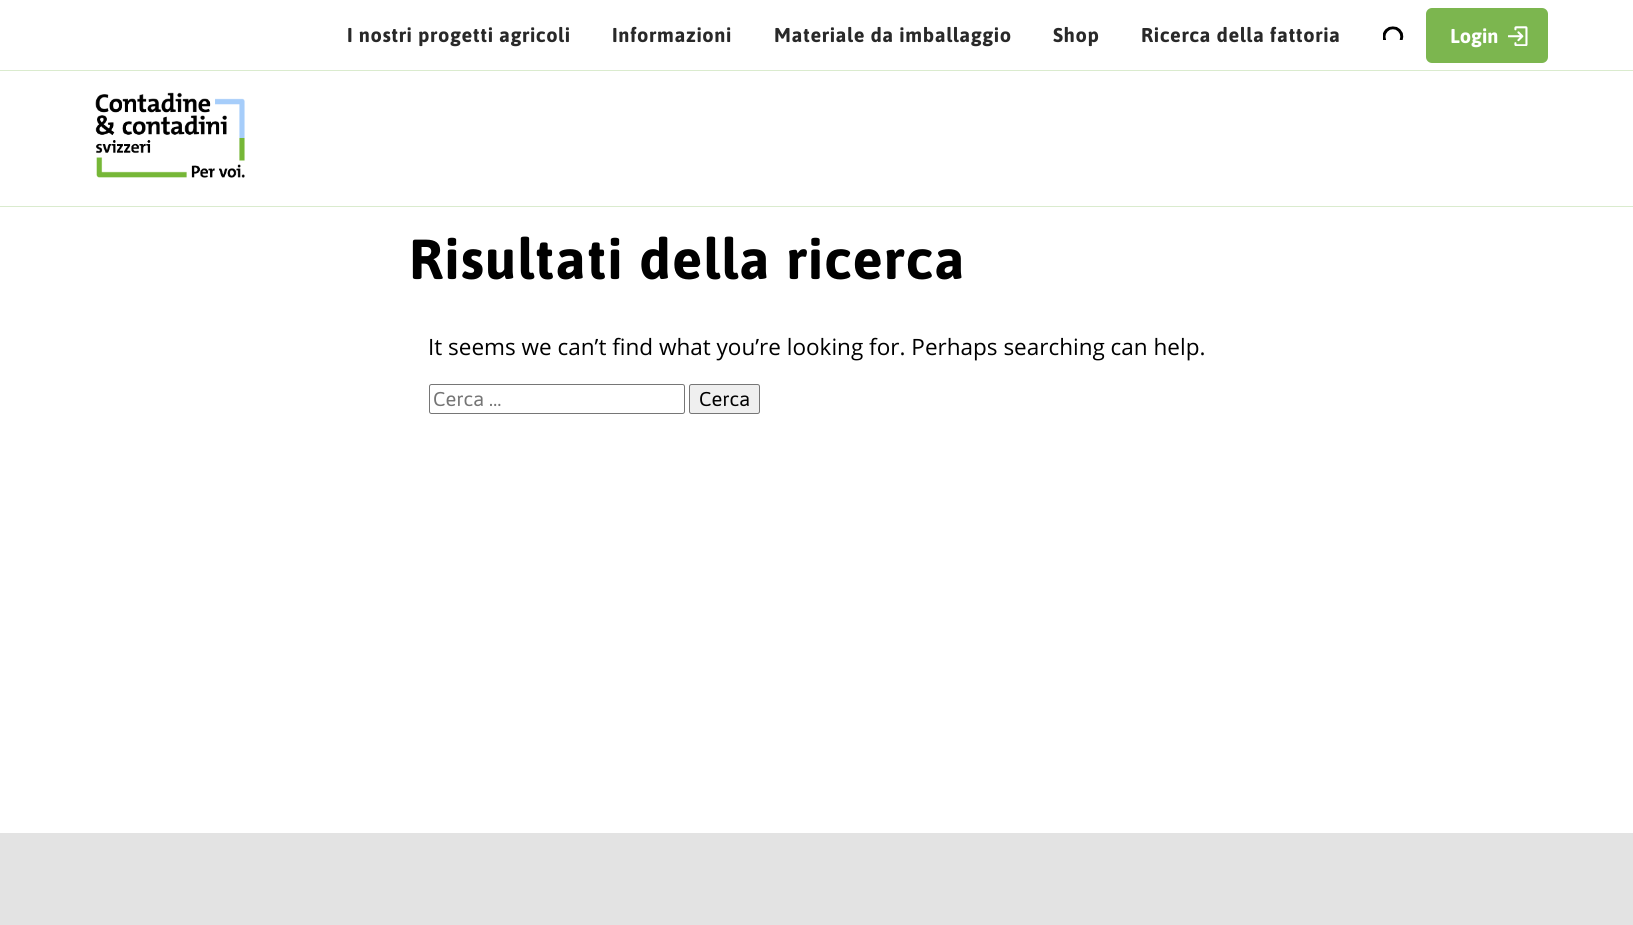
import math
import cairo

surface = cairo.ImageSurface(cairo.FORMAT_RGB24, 1633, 925)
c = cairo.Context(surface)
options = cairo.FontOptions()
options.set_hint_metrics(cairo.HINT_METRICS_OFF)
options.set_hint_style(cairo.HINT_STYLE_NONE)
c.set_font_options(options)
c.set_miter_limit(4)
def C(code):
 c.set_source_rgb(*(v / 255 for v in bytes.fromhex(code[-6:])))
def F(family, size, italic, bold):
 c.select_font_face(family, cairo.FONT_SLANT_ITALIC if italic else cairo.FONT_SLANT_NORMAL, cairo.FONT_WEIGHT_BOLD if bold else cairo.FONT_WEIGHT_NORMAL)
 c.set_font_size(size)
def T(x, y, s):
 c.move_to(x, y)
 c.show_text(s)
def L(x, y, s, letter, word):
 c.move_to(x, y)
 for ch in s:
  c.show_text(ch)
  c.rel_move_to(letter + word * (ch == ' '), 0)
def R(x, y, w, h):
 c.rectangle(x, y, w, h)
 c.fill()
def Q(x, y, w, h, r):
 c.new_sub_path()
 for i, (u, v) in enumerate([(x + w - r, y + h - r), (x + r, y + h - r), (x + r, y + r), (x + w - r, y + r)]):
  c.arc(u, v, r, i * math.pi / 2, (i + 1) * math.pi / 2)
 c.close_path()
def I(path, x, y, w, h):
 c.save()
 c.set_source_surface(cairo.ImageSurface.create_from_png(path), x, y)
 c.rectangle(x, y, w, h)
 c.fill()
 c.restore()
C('ffffff')
c.paint()
F('Asap',20,0,1)
C('292929')
L(347,42,'I nostri progetti agricoli',.6,0)
L(612,42,'Informazioni',.6,0)
L(774,42,'Materiale da imballaggio',.6,0)
L(1053,42,'Shop',.6,0)
L(1141,42,'Ricerca della fattoria',.6,0)
I('1.png',1383,26,21,14)
C('7cb64f')
Q(1426,8,122,55,6)
c.fill()
I('2.png',1508,26,20,20)
C('ffffff')
T(1450,43,'Login')
C('daebce')
R(0,70,1633,1)
R(0,206,1633,1)
I('3.png',95,92,150,86)
F('Asap',56.25,0,1)
C('000000')
L(409,279,'Risultati della ricerca',1.1,1)
F('Open Sans',22.5,0,0)
T(428,355,'It seems we can’t find what you’re looking for. Perhaps searching can help.')
Q(429.5,384.5,255,29,2)
C('767676')
c.set_line_width(1)
c.stroke()
F('Asap',20,0,0)
C('757575')
T(433,406,'Cerca …')
C('efefef')
Q(689.5,384.5,70,29,2)
c.fill_preserve()
C('767676')
c.stroke()
C('000000')
T(699,406,'Cerca')
C('e3e3e3')
R(0,833,1633,92)
surface.write_to_png('o.png')
